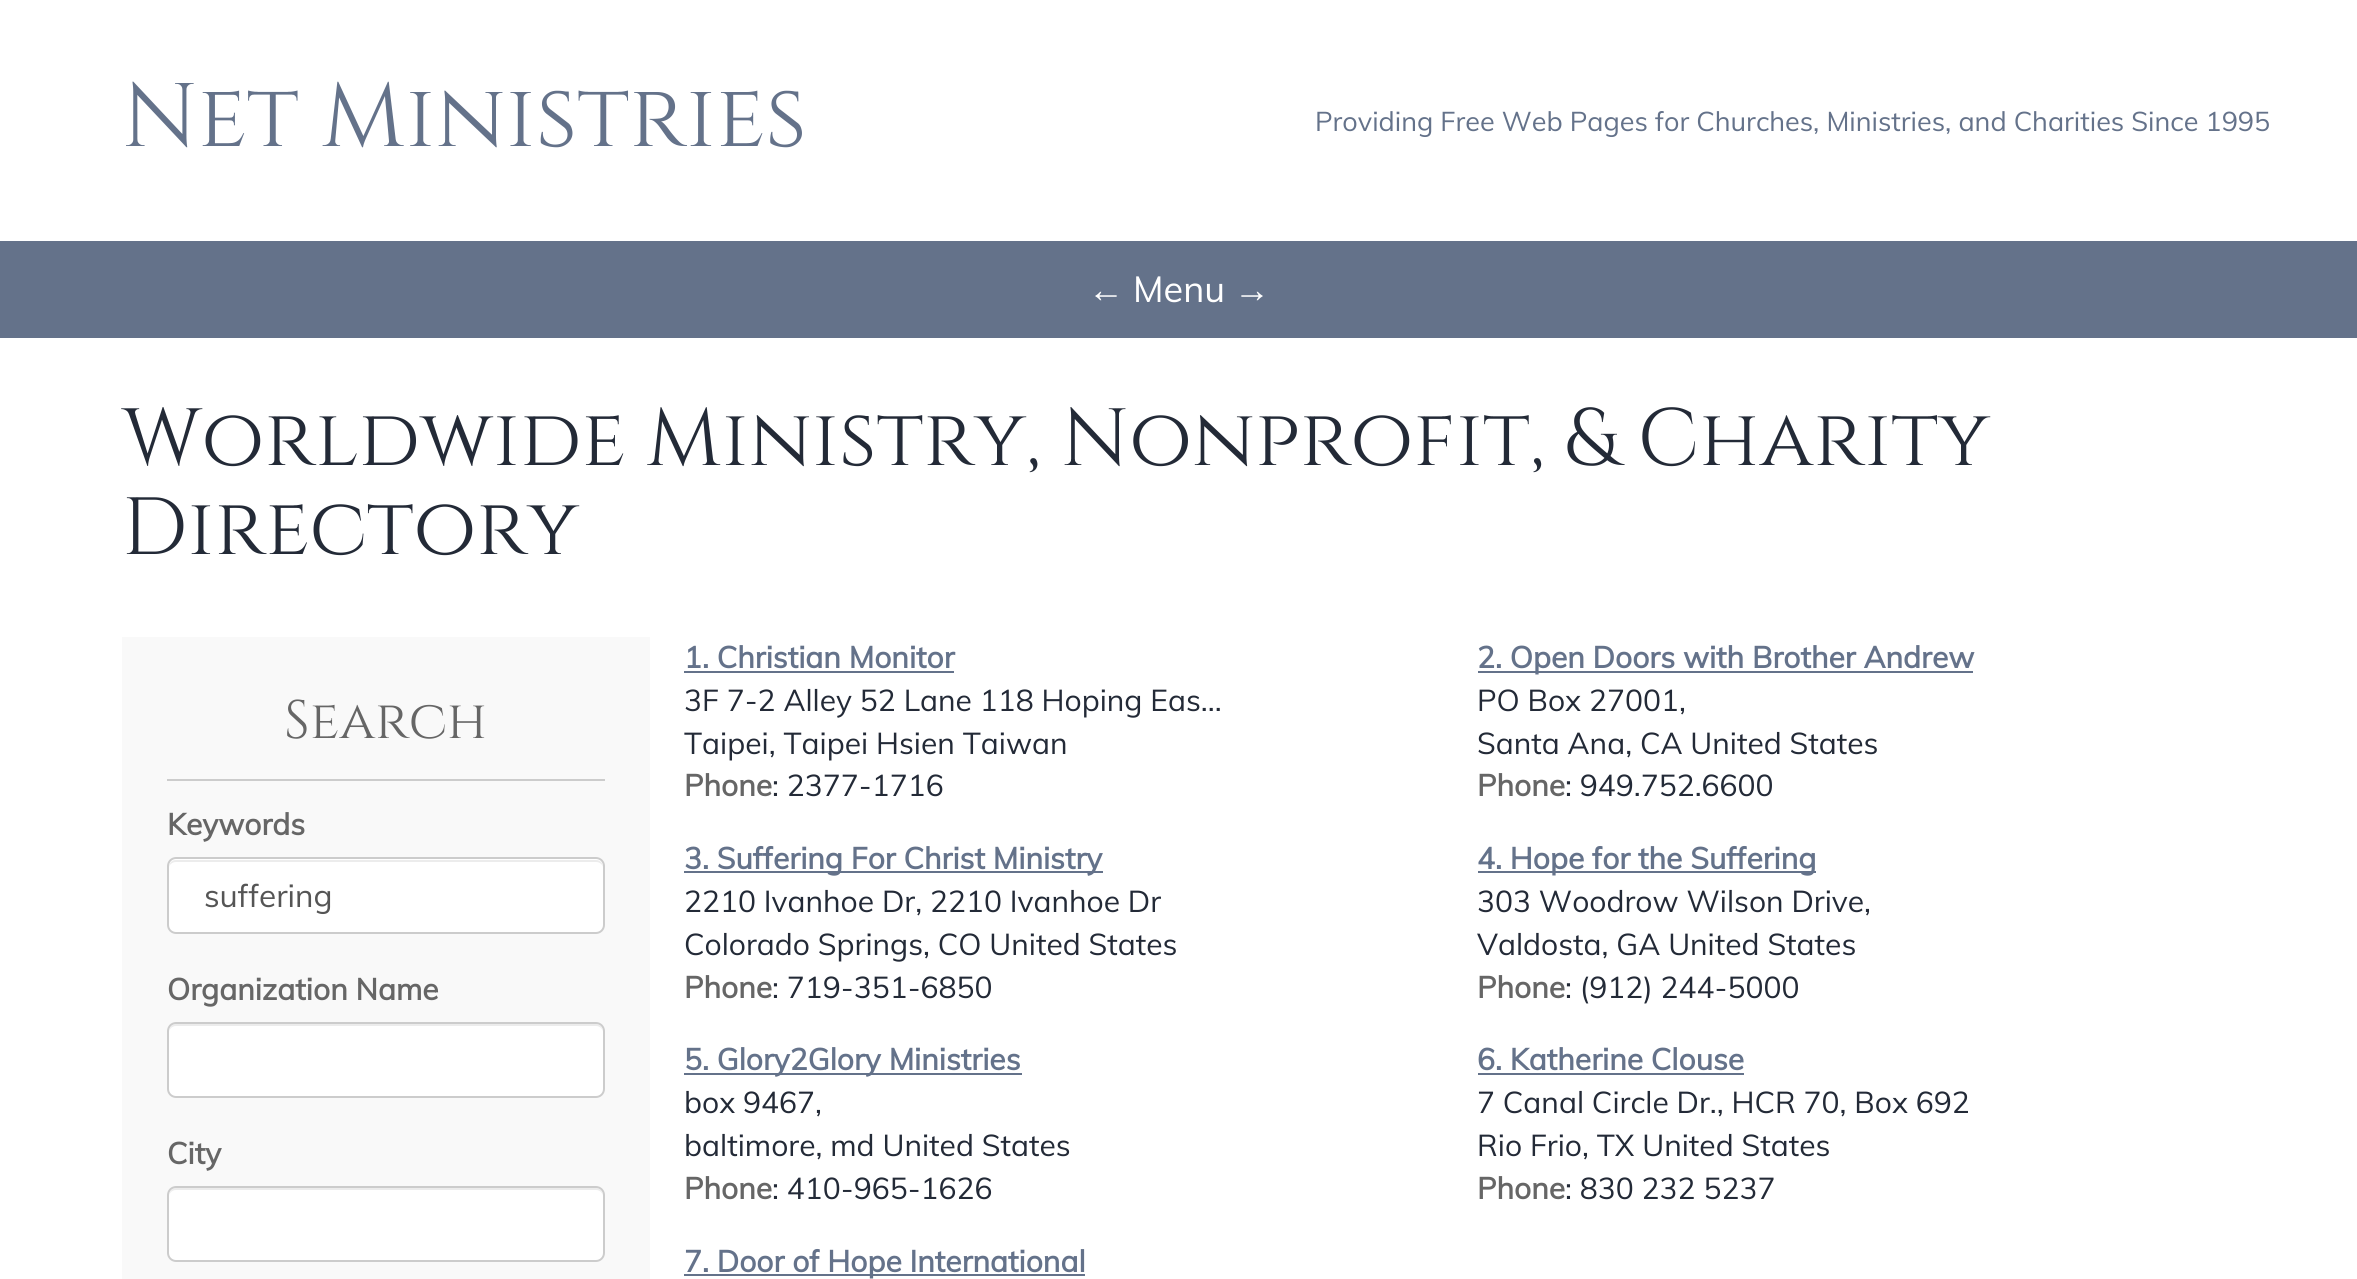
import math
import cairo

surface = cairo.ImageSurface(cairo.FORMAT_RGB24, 2357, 1279)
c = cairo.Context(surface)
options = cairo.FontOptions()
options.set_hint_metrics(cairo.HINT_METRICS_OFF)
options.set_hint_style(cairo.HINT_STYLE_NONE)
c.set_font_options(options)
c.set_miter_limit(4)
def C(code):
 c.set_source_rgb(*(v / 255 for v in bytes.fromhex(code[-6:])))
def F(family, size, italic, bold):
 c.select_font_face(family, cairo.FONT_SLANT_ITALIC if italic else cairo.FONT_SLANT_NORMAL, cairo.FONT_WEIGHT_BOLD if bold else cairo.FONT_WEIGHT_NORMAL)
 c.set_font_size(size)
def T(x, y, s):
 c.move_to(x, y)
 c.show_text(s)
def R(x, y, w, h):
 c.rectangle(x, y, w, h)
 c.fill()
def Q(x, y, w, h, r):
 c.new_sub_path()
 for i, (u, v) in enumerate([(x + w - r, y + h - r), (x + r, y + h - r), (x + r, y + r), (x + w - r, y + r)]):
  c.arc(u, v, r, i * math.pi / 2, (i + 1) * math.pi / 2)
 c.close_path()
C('ffffff')
c.paint()
F('Cinzel',90,0,0)
C('64728a')
T(122,146,'Net Ministries')
F('Muli',27,0,0)
T(1315,131,'Providing Free Web Pages for Churches, Ministries, and Charities Since 1995')
R(0,241,2357,97)
F('Liberation Sans',36,0,0)
C('ffffff')
T(1088,302,'←')
F('Muli',36,0,0)
T(1133,302,'Menu')
F('Liberation Sans',36,0,0)
T(1234,302,'→')
F('Cinzel',81,0,0)
C('232a37')
T(122,465,'Worldwide Ministry, Nonprofit, & Charity')
T(122,554,'Directory')
C('f9f9f9')
R(122,637,528,642)
C('cccccc')
R(167,779,438,2)
F('Cinzel',54,0,0)
C('666666')
T(284,738,'Search')
F('Muli',30,0,1)
T(167,835,'Keywords')
C('ffffff')
Q(167,857,438,77,9)
c.fill()
C('ececec')
c.new_path()
c.move_to(176,862)
c.line_to(596,862)
c.curve_to(600,862,603,865,603,868)
c.curve_to(603,864,601,860,596,860)
c.line_to(176,860)
c.curve_to(171,860,169,864,169,868)
c.curve_to(169,865,172,862,176,862)
c.close_path()
c.fill()
Q(168,858,436,75,8)
C('cccccc')
c.stroke()
F('Muli',31.5,0,0)
C('555555')
T(204,907,'suffering')
F('Muli',30,0,1)
C('666666')
T(167,1000,'Organization Name')
C('ffffff')
Q(167,1022,438,76,9)
c.fill()
C('ececec')
c.new_path()
c.move_to(176,1026)
c.line_to(596,1026)
c.curve_to(600,1026,603,1029,603,1033)
c.curve_to(603,1029,601,1024,596,1024)
c.line_to(176,1024)
c.curve_to(171,1024,169,1029,169,1033)
c.curve_to(169,1029,172,1026,176,1026)
c.close_path()
c.fill()
Q(168,1023,436,74,8)
C('cccccc')
c.stroke()
C('666666')
T(167,1164,'City')
C('ffffff')
Q(167,1186,438,76,9)
c.fill()
C('ececec')
c.new_path()
c.move_to(176,1190)
c.line_to(596,1190)
c.curve_to(600,1190,603,1193,603,1197)
c.curve_to(603,1193,601,1188,596,1188)
c.line_to(176,1188)
c.curve_to(171,1188,169,1193,169,1197)
c.curve_to(169,1193,172,1190,176,1190)
c.close_path()
c.fill()
Q(168,1187,436,74,8)
C('cccccc')
c.stroke()
C('64728a')
T(684,668,'1. Christian Monitor')
R(684,671,270,2)
F('Muli',30,0,0)
C('232a37')
T(684,711,'3F 7-2 Alley 52 Lane 118 Hoping Eas...')
T(684,754,'Taipei, Taipei Hsien Taiwan')
F('Muli',30,0,1)
C('666666')
T(684,796,'Phone')
F('Muli',30,0,0)
C('232a37')
T(772,796,': 2377-1716')
C('64728a')
R(1478,671,495,2)
F('Muli',30,0,1)
T(1477,668,'2. Open Doors with Brother Andrew')
F('Muli',30,0,0)
C('232a37')
T(1477,711,'PO Box 27001,')
T(1477,754,'Santa Ana, CA United States')
F('Muli',30,0,1)
C('666666')
T(1477,796,'Phone')
F('Muli',30,0,0)
C('232a37')
T(1565,796,': 949.752.6600')
C('64728a')
R(684,871,419,2)
F('Muli',30,0,1)
T(684,869,'3. Suffering For Christ Ministry')
F('Muli',30,0,0)
C('232a37')
T(684,912,'2210 Ivanhoe Dr, 2210 Ivanhoe Dr')
T(684,955,'Colorado Springs, CO United States')
F('Muli',30,0,1)
C('666666')
T(684,998,'Phone')
F('Muli',30,0,0)
C('232a37')
T(772,998,': 719-351-6850')
C('64728a')
R(1478,871,338,2)
F('Muli',30,0,1)
T(1477,869,'4. Hope for the Suffering')
F('Muli',30,0,0)
C('232a37')
T(1477,912,'303 Woodrow Wilson Drive,')
T(1477,955,'Valdosta, GA United States')
F('Muli',30,0,1)
C('666666')
T(1477,998,'Phone')
F('Muli',30,0,0)
C('232a37')
T(1565,998,': (912) 244-5000')
C('64728a')
R(684,1073,338,2)
F('Muli',30,0,1)
T(684,1070,'5. Glory2Glory Ministries')
F('Muli',30,0,0)
C('232a37')
T(684,1113,'box 9467,')
T(684,1156,'baltimore, md United States')
F('Muli',30,0,1)
C('666666')
T(684,1199,'Phone')
F('Muli',30,0,0)
C('232a37')
T(772,1199,': 410-965-1626')
F('Muli',30,0,1)
C('64728a')
T(1477,1070,'6. Katherine Clouse')
R(1478,1073,266,2)
F('Muli',30,0,0)
C('232a37')
T(1477,1113,'7 Canal Circle Dr., HCR 70, Box 692')
T(1477,1156,'Rio Frio, TX United States')
F('Muli',30,0,1)
C('666666')
T(1477,1199,'Phone')
F('Muli',30,0,0)
C('232a37')
T(1565,1199,': 830 232 5237')
C('64728a')
R(684,1274,401,2)
F('Muli',30,0,1)
T(684,1272,'7. Door of Hope International')
surface.write_to_png('o.png')
